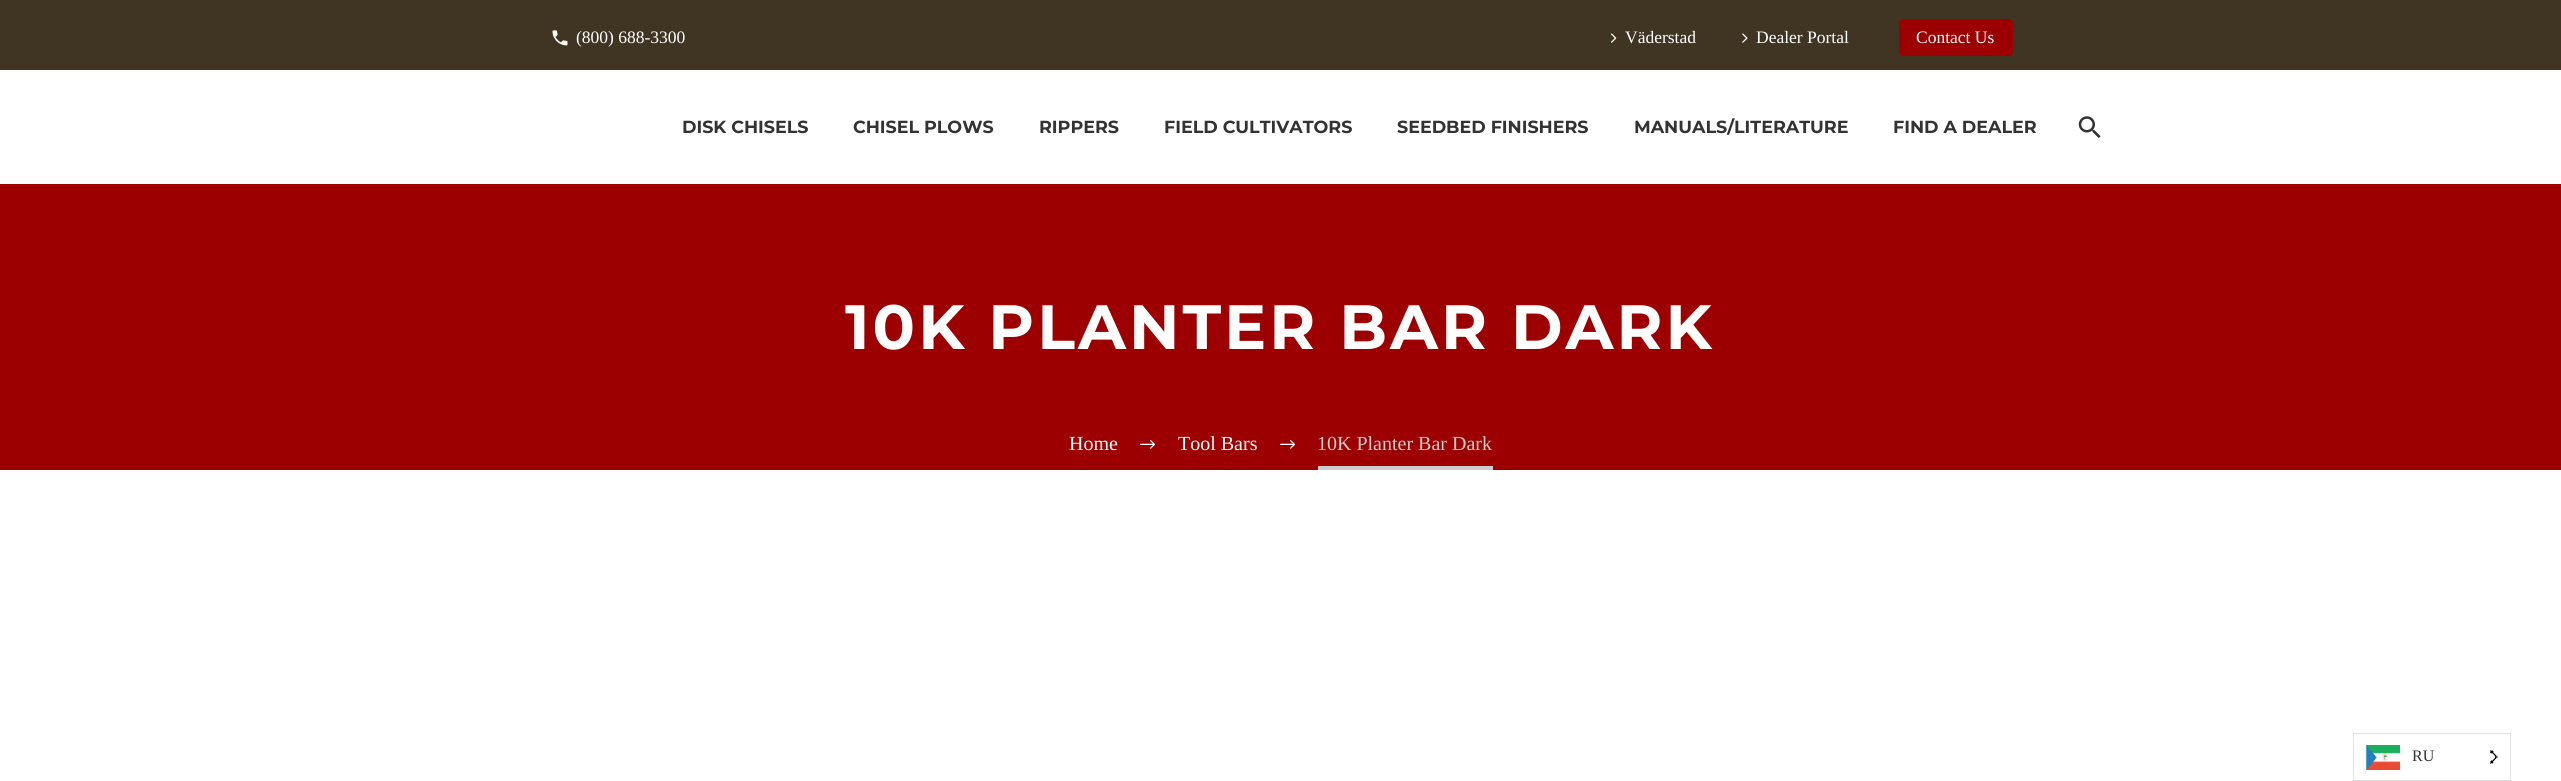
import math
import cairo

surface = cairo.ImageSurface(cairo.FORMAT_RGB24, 2561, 781)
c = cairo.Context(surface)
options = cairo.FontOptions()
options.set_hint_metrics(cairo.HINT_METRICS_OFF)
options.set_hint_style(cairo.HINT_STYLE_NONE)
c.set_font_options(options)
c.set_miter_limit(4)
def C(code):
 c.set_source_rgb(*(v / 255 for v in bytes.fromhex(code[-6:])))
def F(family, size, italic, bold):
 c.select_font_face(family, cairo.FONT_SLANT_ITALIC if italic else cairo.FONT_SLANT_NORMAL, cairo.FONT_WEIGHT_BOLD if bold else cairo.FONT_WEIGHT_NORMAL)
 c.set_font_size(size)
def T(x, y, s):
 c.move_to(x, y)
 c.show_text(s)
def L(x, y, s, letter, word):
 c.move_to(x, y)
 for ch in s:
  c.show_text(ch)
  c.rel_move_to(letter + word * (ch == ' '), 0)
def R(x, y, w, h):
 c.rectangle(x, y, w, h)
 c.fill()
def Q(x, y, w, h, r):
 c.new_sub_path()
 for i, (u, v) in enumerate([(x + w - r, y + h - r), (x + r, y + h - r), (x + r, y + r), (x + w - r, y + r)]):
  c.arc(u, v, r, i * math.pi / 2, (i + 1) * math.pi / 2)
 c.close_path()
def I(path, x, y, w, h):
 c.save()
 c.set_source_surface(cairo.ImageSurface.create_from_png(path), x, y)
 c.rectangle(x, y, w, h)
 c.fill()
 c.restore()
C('ffffff')
c.paint()
C('403523')
R(0,0,2561,70)
I('1.png',552,30,16,16)
F('Liberation Serif',17.5,0,0)
C('ffffff')
T(576,43,'(800) 688-3300')
I('2.png',1611,33,6,10)
T(1625,43,'Väderstad')
I('3.png',1742,33,6,10)
T(1756,43,'Dealer Portal')
C('9c0001')
Q(1899,19,114,37,4)
c.fill()
C('ffffff')
T(1916,43,'Contact Us')
F('Montserrat',17.5,0,1)
C('333333')
T(682,133,'DISK CHISELS')
T(853,133,'CHISEL PLOWS')
T(1039,133,'RIPPERS')
T(1164,133,'FIELD CULTIVATORS')
T(1397,133,'SEEDBED FINISHERS')
T(1634,133,'MANUALS/LITERATURE')
T(1893,133,'FIND A DEALER')
I('4.png',2078,116,23,22)
C('9c0001')
R(0,184,2561,286)
F('Montserrat',62.5,0,1)
C('ffffff')
L(845,349,'10K PLANTER BAR DARK',3.1,0)
F('Liberation Serif',20,0,0)
T(1069,450,'Home')
I('5.png',1140,440,15,9)
T(1178,450,'Tool Bars')
I('5.png',1280,440,15,9)
C('cccccc')
R(1318,466,175,4)
T(1317,450,'10K Planter Bar Dark')
c.rectangle(2353.5,733.5,157,47)
C('e0e0e0')
c.set_line_width(1)
c.stroke()
I('6.png',2366,745,34,25)
F('Liberation Serif',16,0,0)
C('333333')
T(2412,761,'RU')
I('7.png',2490,750,8,14)
surface.write_to_png('o.png')
